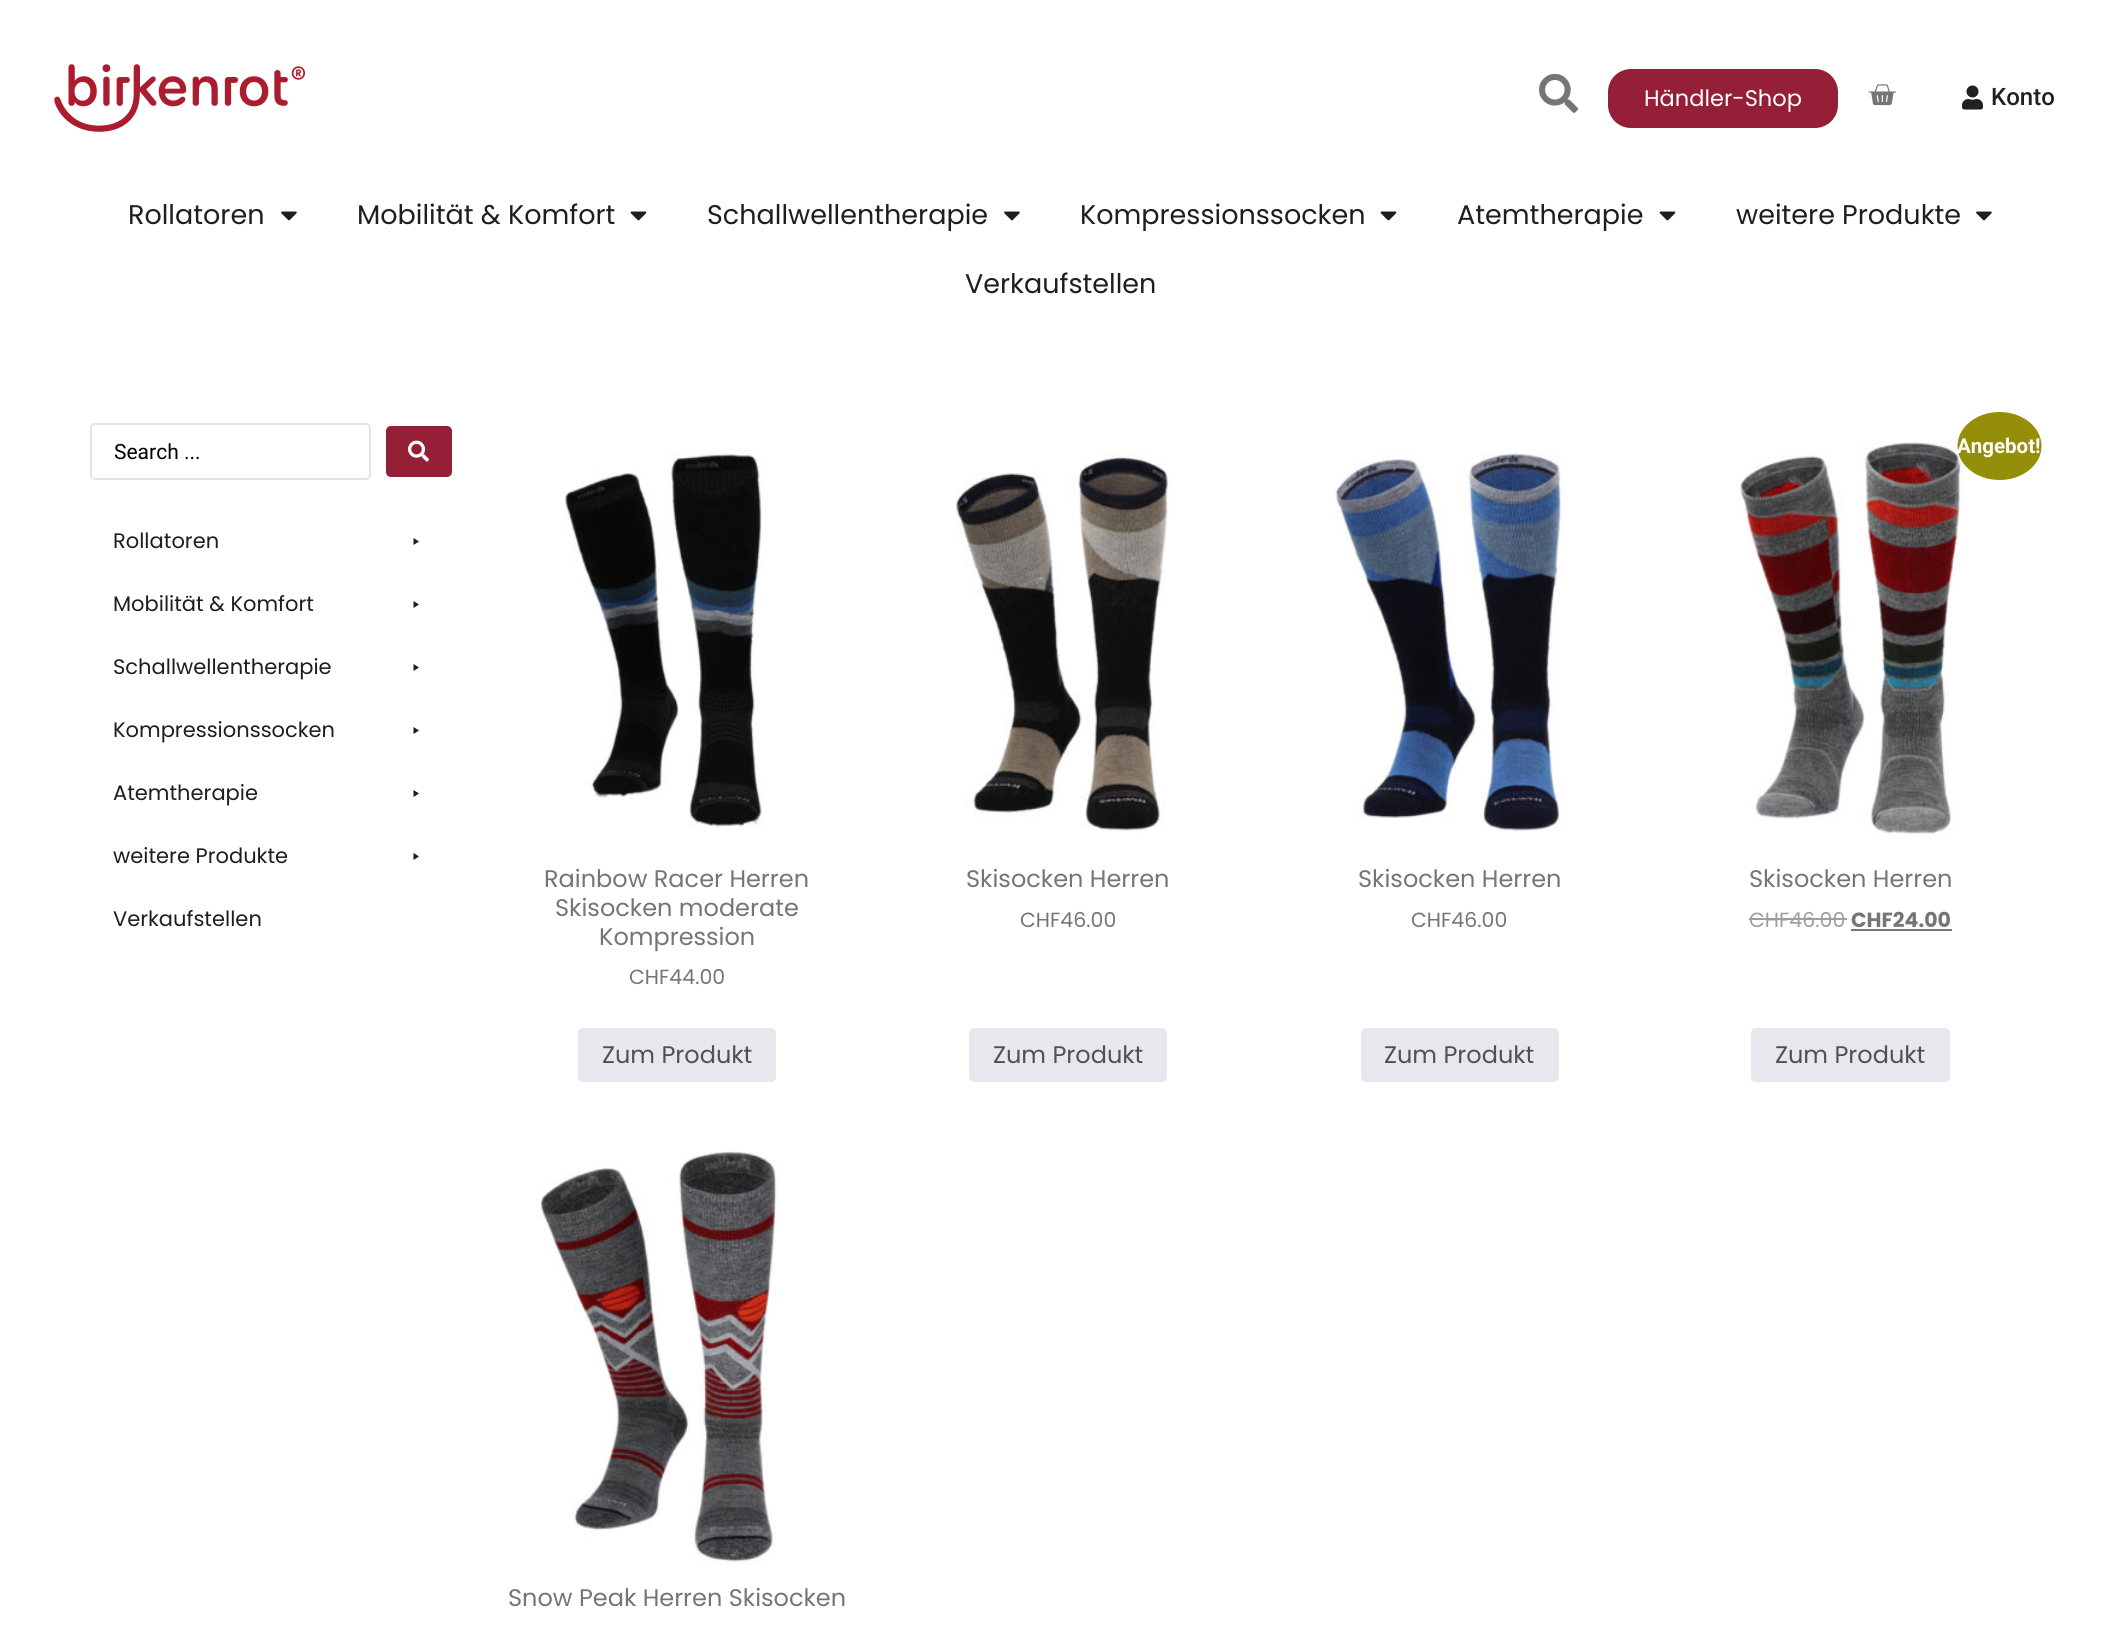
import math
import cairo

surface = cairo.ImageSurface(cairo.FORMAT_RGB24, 2121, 1626)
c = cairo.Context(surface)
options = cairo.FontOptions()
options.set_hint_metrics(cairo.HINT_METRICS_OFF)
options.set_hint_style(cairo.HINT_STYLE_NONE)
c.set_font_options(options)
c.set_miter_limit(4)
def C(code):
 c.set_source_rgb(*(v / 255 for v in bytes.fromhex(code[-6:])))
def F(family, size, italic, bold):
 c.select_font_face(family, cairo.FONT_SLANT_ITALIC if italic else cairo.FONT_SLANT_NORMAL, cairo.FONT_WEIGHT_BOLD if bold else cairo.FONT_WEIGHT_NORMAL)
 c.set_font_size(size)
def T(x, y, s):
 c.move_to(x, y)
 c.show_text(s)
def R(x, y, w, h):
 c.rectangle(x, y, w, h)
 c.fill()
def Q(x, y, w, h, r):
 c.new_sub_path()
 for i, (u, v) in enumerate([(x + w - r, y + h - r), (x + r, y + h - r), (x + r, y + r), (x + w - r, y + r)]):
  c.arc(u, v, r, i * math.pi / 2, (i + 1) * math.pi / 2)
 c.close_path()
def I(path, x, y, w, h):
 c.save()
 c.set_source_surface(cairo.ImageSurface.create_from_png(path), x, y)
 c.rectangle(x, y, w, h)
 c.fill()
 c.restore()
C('ffffff')
c.paint()
I('1.png',54,64,251,68)
I('2.png',1539,73,39,40)
C('941f37')
Q(1608,69,230,59,23)
c.fill()
F('Poppins',22.5,0,0)
C('ffffff')
T(1644,106,'Händler-Shop')
I('3.png',1868,84,28,22)
I('4.png',1962,85,21,25)
F('Roboto Medium',24,0,0)
C('1f2124')
T(1991,105,'Konto')
F('Poppins',27,0,0)
C('1e1e1e')
T(128,224,'Rollatoren')
I('5.png',281,211,16,10)
T(357,224,'Mobilität & Komfort')
I('6.png',630,211,17,10)
T(707,224,'Schallwellentherapie')
I('5.png',1004,211,16,10)
T(1080,224,'Kompressionssocken')
I('6.png',1380,211,17,10)
T(1457,224,'Atemtherapie')
I('6.png',1659,211,17,10)
T(1736,224,'weitere Produkte')
I('5.png',1976,211,16,10)
T(965,293,'Verkaufstellen')
Q(91,424,279,55,4)
C('e1e5eb')
c.stroke()
F('Roboto',21,0,0)
C('000000')
T(114,459,'Search ...')
C('941f37')
Q(386,426,66,51,5)
c.fill()
I('7.png',408,440,21,22)
F('Poppins',21,0,0)
C('1e1e1e')
T(113,548,'Rollatoren')
c.new_path()
c.move_to(413.5,538)
c.line_to(419,541.5)
c.line_to(413.5,545)
c.close_path()
c.fill()
T(113,611,'Mobilität & Komfort')
c.new_path()
c.move_to(413.5,601)
c.line_to(419,604.5)
c.line_to(413.5,608)
c.close_path()
c.fill()
T(113,674,'Schallwellentherapie')
c.new_path()
c.move_to(413.5,664)
c.line_to(419,667.5)
c.line_to(413.5,671)
c.close_path()
c.fill()
T(113,737,'Kompressionssocken')
c.new_path()
c.move_to(413.5,727)
c.line_to(419,730.5)
c.line_to(413.5,734)
c.close_path()
c.fill()
T(113,800,'Atemtherapie')
c.new_path()
c.move_to(413.5,790)
c.line_to(419,793.5)
c.line_to(413.5,797)
c.close_path()
c.fill()
T(113,863,'weitere Produkte')
c.new_path()
c.move_to(413.5,853)
c.line_to(419,856.5)
c.line_to(413.5,860)
c.close_path()
c.fill()
T(113,926,'Verkaufstellen')
I('8.png',564,452,201,376)
F('Poppins',24,0,0)
C('757575')
T(544,887,'Rainbow Racer Herren')
T(555,916,'Skisocken moderate')
T(599,945,'Kompression')
F('Poppins',20.5,0,0)
T(629,984,'CHF44.00')
C('e9e6ed')
Q(578,1028,198,54,5)
c.fill()
F('Poppins',24,0,0)
C('515151')
T(602,1063,'Zum Produkt')
I('9.png',955,453,215,380)
C('757575')
T(966,887,'Skisocken Herren')
F('Poppins',20.5,0,0)
T(1020,927,'CHF46.00')
C('e9e6ed')
Q(969,1028,198,54,5)
c.fill()
F('Poppins',24,0,0)
C('515151')
T(993,1063,'Zum Produkt')
I('10.png',1335,452,232,380)
C('757575')
T(1358,887,'Skisocken Herren')
F('Poppins',20.5,0,0)
T(1411,927,'CHF46.00')
C('e9e6ed')
Q(1361,1028,198,54,5)
c.fill()
F('Poppins',24,0,0)
C('515151')
T(1384,1063,'Zum Produkt')
I('11.png',1737,442,229,396)
C('958e09')
c.new_path()
c.move_to(1999.5,412)
c.curve_to(2022.5,412,2041.5,427,2041.5,446)
c.curve_to(2041.5,465,2022.5,480,1999.5,480)
c.curve_to(1976.5,480,1957.5,465,1957.5,446)
c.curve_to(1957.5,427,1976.5,412,1999.5,412)
c.close_path()
c.fill()
F('Roboto',20.5,0,1)
C('ffffff')
T(1957,453,'Angebot!')
F('Poppins',24,0,0)
C('757575')
T(1749,887,'Skisocken Herren')
F('Poppins',20.5,0,0)
C('9e9e9e')
T(1749,927,'CHF46.00')
R(1749,918,98,2)
F('Poppins',20.5,0,1)
C('757575')
T(1851,927,'CHF24.00')
R(1851,929,101,2)
C('e9e6ed')
Q(1751,1028,199,54,5)
c.fill()
F('Poppins',24,0,0)
C('515151')
T(1775,1063,'Zum Produkt')
I('12.png',537,1151,240,415)
C('757575')
T(508,1606,'Snow Peak Herren Skisocken')
surface.write_to_png('o.png')
